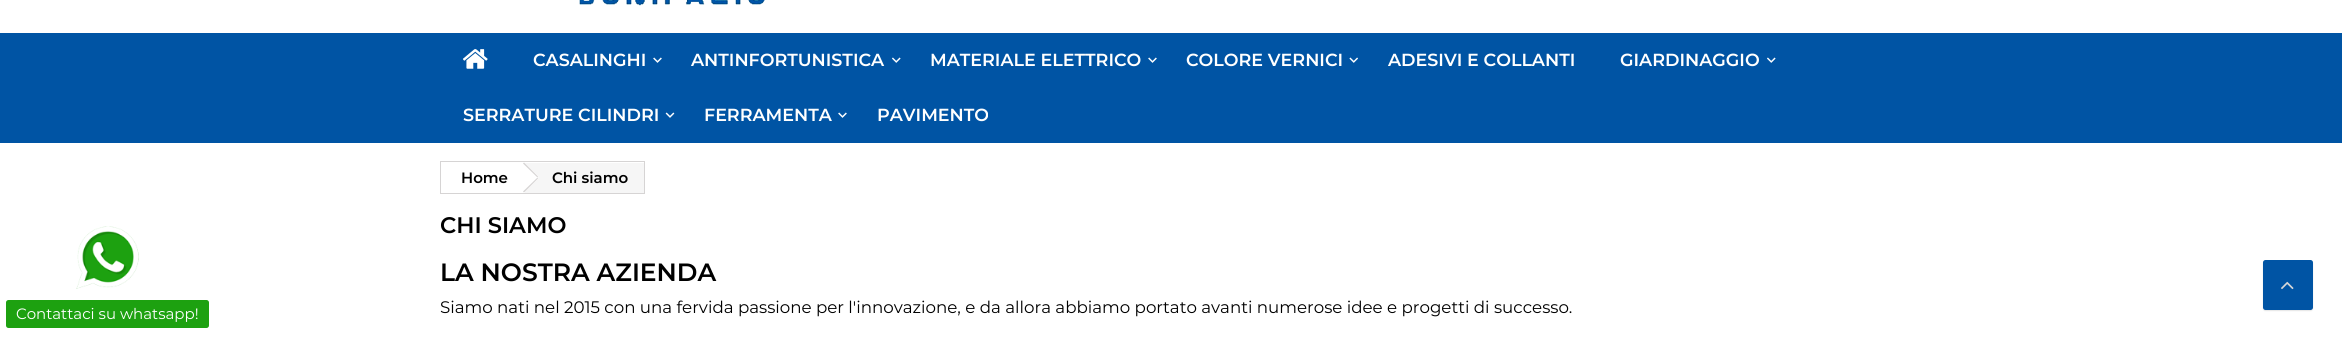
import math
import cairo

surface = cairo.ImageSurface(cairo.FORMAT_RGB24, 2342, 339)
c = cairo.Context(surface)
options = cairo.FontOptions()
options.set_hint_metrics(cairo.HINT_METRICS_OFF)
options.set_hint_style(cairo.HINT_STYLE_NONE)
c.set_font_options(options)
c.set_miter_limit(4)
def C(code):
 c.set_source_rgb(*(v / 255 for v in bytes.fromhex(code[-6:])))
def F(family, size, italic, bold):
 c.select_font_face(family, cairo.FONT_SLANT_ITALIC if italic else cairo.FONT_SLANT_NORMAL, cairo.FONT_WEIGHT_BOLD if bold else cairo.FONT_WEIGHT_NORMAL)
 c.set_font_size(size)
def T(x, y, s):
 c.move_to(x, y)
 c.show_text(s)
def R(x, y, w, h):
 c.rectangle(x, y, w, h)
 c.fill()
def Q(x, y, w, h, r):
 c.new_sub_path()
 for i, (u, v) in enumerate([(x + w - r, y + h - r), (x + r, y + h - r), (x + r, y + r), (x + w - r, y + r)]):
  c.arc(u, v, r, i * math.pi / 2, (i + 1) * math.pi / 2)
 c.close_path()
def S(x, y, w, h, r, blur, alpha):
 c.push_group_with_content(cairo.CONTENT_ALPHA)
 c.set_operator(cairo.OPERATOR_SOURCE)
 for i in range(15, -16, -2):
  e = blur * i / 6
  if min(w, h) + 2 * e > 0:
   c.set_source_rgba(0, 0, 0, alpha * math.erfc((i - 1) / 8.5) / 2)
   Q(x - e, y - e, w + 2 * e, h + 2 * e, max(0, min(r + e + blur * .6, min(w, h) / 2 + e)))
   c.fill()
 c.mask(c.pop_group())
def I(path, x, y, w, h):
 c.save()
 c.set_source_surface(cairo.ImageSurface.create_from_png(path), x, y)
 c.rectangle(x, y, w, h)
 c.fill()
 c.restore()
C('ffffff')
c.paint()
I('1.png',579,0,186,6)
C('0054a4')
R(0,33,2342,110)
I('2.png',463,49,25,20)
F('Montserrat SemiBold',17.5,0,0)
C('ffffff')
T(533,66,'CASALINGHI')
I('3.png',653,57,9,6)
T(691,66,'ANTINFORTUNISTICA')
I('4.png',892,57,9,6)
T(930,66,'MATERIALE ELETTRICO')
I('3.png',1148,57,9,6)
T(1186,66,'COLORE VERNICI')
I('5.png',1349,57,9,6)
T(1388,66,'ADESIVI E COLLANTI')
T(1620,66,'GIARDINAGGIO')
I('4.png',1767,57,9,6)
T(463,121,'SERRATURE CILINDRI')
I('6.png',665,112,10,6)
T(704,121,'FERRAMENTA')
I('3.png',838,112,9,6)
T(877,121,'PAVIMENTO')
I('7.png',76,226,63,63)
C('1da110')
Q(6,300,203,28,2.5)
c.fill()
F('Montserrat',15,0,0)
C('ffffff')
T(16,319,'Contattaci su whatsapp!')
C('000000')
S(2263,261,50,50,2.5,.5,.1)
C('0054a4')
Q(2263,260,50,50,2.5)
c.fill()
I('8.png',2281,281,13,9)
c.rectangle(440.5,161.5,204,32)
C('d6d4d4')
c.set_line_width(1)
c.stroke()
F('Montserrat SemiBold',15,0,0)
C('000000')
T(461,183,'Home')
C('f6f6f6')
R(525,163,119,30)
C('ffffff')
c.new_path()
c.move_to(525,163.5)
c.line_to(537.5,175.5)
c.curve_to(538.5,176.5,538.5,178.5,537.5,179.5)
c.line_to(525,191.5)
c.curve_to(524,192.5,522.5,192.5,521.5,191.5)
c.line_to(509,179.5)
c.curve_to(508,178.5,508,176.5,509,175.5)
c.line_to(521.5,163.5)
c.curve_to(522.5,162.5,524,162.5,525,163.5)
c.close_path()
c.fill()
C('d6d4d4')
c.new_path()
c.move_to(524,162.5)
c.line_to(538,176.5)
c.line_to(537.5,177.5)
c.line_to(523,163.5)
c.close_path()
c.fill()
c.new_path()
c.move_to(537.5,177.5)
c.line_to(538,178.5)
c.line_to(524,192.5)
c.line_to(523,191.5)
c.close_path()
c.fill()
C('000000')
T(552,183,'Chi siamo')
F('Montserrat SemiBold',22.5,0,0)
T(440,233,'CHI SIAMO')
F('Montserrat SemiBold',25,0,0)
T(440,281,'LA NOSTRA AZIENDA')
F('Montserrat',16.67,0,0)
T(440,313,'Siamo nati nel 2015 con una fervida passione per l\'innovazione, e da allora abbiamo portato avanti numerose idee e progetti di successo.')
surface.write_to_png('o.png')
